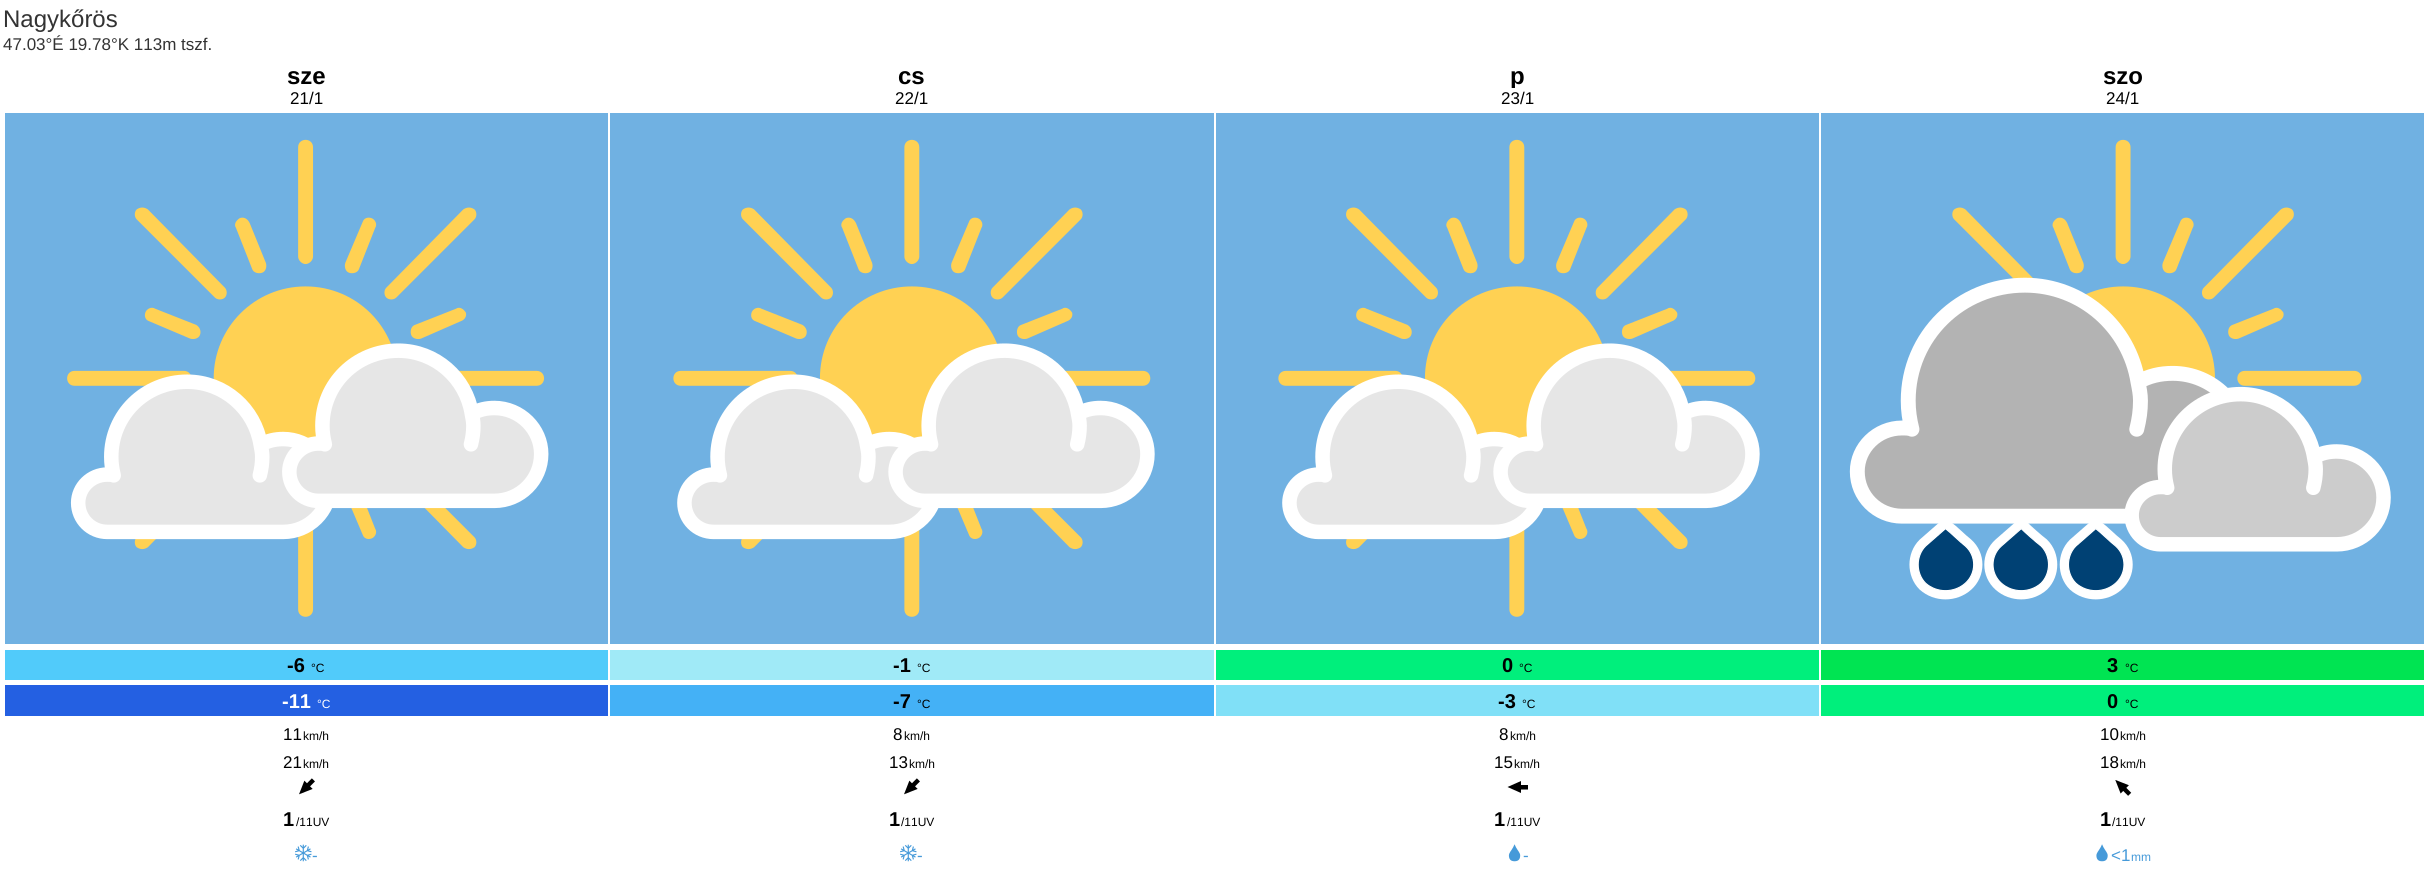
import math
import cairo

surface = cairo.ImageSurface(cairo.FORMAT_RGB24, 2428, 878)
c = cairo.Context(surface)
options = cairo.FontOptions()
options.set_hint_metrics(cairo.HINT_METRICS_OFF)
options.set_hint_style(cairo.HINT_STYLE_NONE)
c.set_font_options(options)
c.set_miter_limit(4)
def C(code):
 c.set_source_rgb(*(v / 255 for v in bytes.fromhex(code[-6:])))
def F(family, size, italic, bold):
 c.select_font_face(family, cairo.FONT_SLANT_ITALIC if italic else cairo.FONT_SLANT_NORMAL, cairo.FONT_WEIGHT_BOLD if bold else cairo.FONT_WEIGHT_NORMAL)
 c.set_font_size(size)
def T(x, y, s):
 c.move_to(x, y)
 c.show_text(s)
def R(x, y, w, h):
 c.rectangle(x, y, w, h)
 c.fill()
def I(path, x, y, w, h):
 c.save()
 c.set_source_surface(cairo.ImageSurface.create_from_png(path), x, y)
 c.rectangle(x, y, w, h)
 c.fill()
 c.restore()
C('ffffff')
c.paint()
F('Liberation Sans',24,0,0)
C('333333')
T(3,27,'Nagykőrös')
F('Liberation Sans',17,0,0)
T(3,50,'47.03°É 19.78°K 113m tszf.')
F('Liberation Sans',24,0,1)
C('000000')
T(287,84,'sze')
F('Liberation Sans',17,0,0)
T(290,104,'21/1')
C('70b1e2')
R(5,113,603,531)
I('1.png',67,139,482,478)
C('51cbfa')
R(5,650,603,30)
F('Liberation Sans',20,0,1)
C('000000')
T(287,672,'-6')
F('Liberation Sans',12,0,0)
T(311,672,'°C')
C('2460e2')
R(5,685,603,31)
F('Liberation Sans',20,0,1)
C('ffffff')
T(282,708,'-11')
F('Liberation Sans',12,0,0)
T(317,708,'°C')
F('Liberation Sans',17,0,0)
C('000000')
T(283,740,'11')
F('Liberation Sans',12,0,0)
T(303,740,'km/h')
F('Liberation Sans',17,0,0)
T(283,768,'21')
F('Liberation Sans',12,0,0)
T(303,768,'km/h')
I('2.png',299,778,16,17)
F('Liberation Sans',20,0,1)
T(283,826,'1')
F('Liberation Sans',12,0,0)
T(296,826,'/11UV')
I('3.png',295,844,17,18)
F('Liberation Sans',17,0,0)
C('469ad9')
T(312,861,'-')
F('Liberation Sans',24,0,1)
C('000000')
T(898,84,'cs')
F('Liberation Sans',17,0,0)
T(895,104,'22/1')
C('70b1e2')
R(610,113,604,531)
I('4.png',673,139,482,478)
C('a0eaf7')
R(610,650,604,30)
F('Liberation Sans',20,0,1)
C('000000')
T(893,672,'-1')
F('Liberation Sans',12,0,0)
T(917,672,'°C')
C('44b1f6')
R(610,685,604,31)
F('Liberation Sans',20,0,1)
C('000000')
T(893,708,'-7')
F('Liberation Sans',12,0,0)
T(917,708,'°C')
F('Liberation Sans',17,0,0)
T(893,740,'8')
F('Liberation Sans',12,0,0)
T(904,740,'km/h')
F('Liberation Sans',17,0,0)
T(889,768,'13')
F('Liberation Sans',12,0,0)
T(909,768,'km/h')
I('2.png',904,778,16,17)
F('Liberation Sans',20,0,1)
T(889,826,'1')
F('Liberation Sans',12,0,0)
T(901,826,'/11UV')
I('3.png',900,844,17,18)
F('Liberation Sans',17,0,0)
C('469ad9')
T(917,861,'-')
c.save()
c.rectangle(1216,58,603,30)
c.clip()
F('Liberation Sans',24,0,1)
C('000000')
T(1510,84,'p')
c.restore()
C('000000')
T(1501,104,'23/1')
C('70b1e2')
R(1216,113,603,531)
I('4.png',1278,139,482,478)
C('00ef7c')
R(1216,650,603,30)
F('Liberation Sans',20,0,1)
C('000000')
T(1502,672,'0')
F('Liberation Sans',12,0,0)
T(1519,672,'°C')
C('80e0f7')
R(1216,685,603,31)
F('Liberation Sans',20,0,1)
C('000000')
T(1498,708,'-3')
F('Liberation Sans',12,0,0)
T(1522,708,'°C')
F('Liberation Sans',17,0,0)
T(1499,740,'8')
F('Liberation Sans',12,0,0)
T(1510,740,'km/h')
F('Liberation Sans',17,0,0)
T(1494,768,'15')
F('Liberation Sans',12,0,0)
T(1514,768,'km/h')
c.new_path()
c.move_to(1507.5,787)
c.line_to(1521,781)
c.line_to(1521,785)
c.line_to(1528,785)
c.line_to(1528,789.5)
c.line_to(1521,789.5)
c.line_to(1521,793)
c.close_path()
c.fill()
F('Liberation Sans',20,0,1)
T(1494,826,'1')
F('Liberation Sans',12,0,0)
T(1507,826,'/11UV')
I('5.png',1508,844,13,18)
F('Liberation Sans',17,0,0)
C('469ad9')
T(1523,861,'-')
F('Liberation Sans',24,0,1)
C('000000')
T(2103,84,'szo')
F('Liberation Sans',17,0,0)
T(2106,104,'24/1')
C('70b1e2')
R(1821,113,603,531)
I('6.png',1849,139,542,461)
C('00e452')
R(1821,650,603,30)
F('Liberation Sans',20,0,1)
C('000000')
T(2107,672,'3')
F('Liberation Sans',12,0,0)
T(2125,672,'°C')
C('00ef7c')
R(1821,685,603,31)
F('Liberation Sans',20,0,1)
C('000000')
T(2107,708,'0')
F('Liberation Sans',12,0,0)
T(2125,708,'°C')
F('Liberation Sans',17,0,0)
T(2100,740,'10')
F('Liberation Sans',12,0,0)
T(2120,740,'km/h')
F('Liberation Sans',17,0,0)
T(2100,768,'18')
F('Liberation Sans',12,0,0)
T(2120,768,'km/h')
I('7.png',2115,780,17,16)
F('Liberation Sans',20,0,1)
T(2100,826,'1')
F('Liberation Sans',12,0,0)
T(2112,826,'/11UV')
I('8.png',2096,844,12,18)
F('Liberation Sans',17,0,0)
C('469ad9')
T(2111,861,'<1')
F('Liberation Sans',12,0,0)
T(2131,861,'mm')
surface.write_to_png('o.png')
